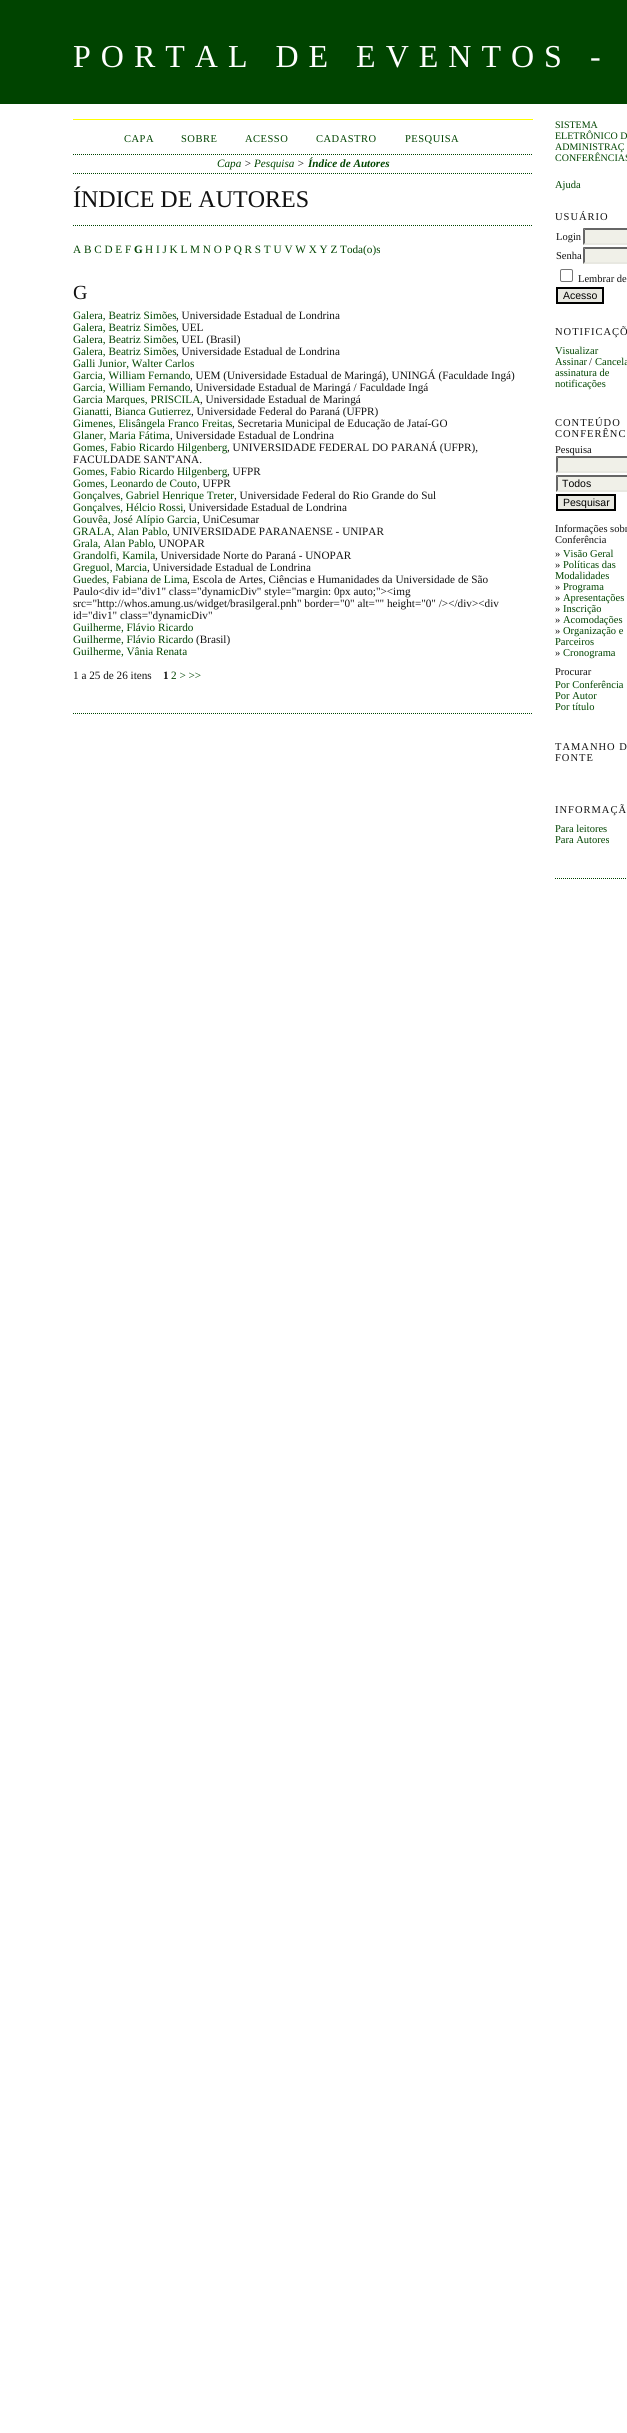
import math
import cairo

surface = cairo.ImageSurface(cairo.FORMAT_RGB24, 627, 2433)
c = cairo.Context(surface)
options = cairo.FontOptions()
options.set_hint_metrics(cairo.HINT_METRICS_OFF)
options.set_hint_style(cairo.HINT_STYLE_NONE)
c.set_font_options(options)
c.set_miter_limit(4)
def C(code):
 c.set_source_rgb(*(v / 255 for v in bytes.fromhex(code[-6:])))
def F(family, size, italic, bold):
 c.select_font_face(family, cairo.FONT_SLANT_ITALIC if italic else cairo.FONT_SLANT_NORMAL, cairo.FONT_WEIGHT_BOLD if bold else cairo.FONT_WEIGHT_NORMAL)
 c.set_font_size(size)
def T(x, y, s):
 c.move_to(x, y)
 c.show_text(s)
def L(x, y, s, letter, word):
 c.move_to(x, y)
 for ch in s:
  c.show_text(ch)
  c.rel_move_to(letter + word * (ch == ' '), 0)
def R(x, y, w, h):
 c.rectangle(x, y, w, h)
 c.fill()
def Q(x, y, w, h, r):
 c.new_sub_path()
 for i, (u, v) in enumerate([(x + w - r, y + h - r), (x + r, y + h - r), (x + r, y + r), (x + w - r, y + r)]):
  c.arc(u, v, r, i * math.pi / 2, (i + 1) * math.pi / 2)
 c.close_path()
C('ffffff')
c.paint()
C('004400')
R(0,0,627,104)
F('Liberation Serif',32,0,0)
C('ffffff')
L(73,67,'PORTAL DE EVENTOS -',10,0)
C('ffff00')
R(73,119,460,1)
c.new_path()
c.move_to(73,713.5)
c.line_to(533,713.5)
C('004400')
c.set_line_width(1)
c.set_dash([1,1])
c.stroke()
c.new_path()
c.move_to(73,154.5)
c.line_to(533,154.5)
c.stroke()
F('Liberation Serif',10.5,0,0)
L(124,142,'CAPA',.5,0)
L(181,142,'SOBRE',.5,0)
L(245,142,'ACESSO',.5,0)
L(316,142,'CADASTRO',.5,0)
L(405,142,'PESQUISA',.5,0)
c.new_path()
c.move_to(73,173.5)
c.line_to(533,173.5)
c.stroke()
F('Liberation Serif',11.2,1,0)
T(217,167,'Capa')
C('111111')
T(244,167,'>')
C('004400')
T(254,167,'Pesquisa')
C('111111')
T(297,167,'>')
F('Liberation Serif',11.2,1,1)
C('004400')
T(308,167,'Índice de Autores')
F('Liberation Serif',24,0,0)
C('111111')
T(73,207,'ÍNDICE DE AUTORES')
c.new_path()
c.move_to(73,225.5)
c.line_to(533,225.5)
C('004400')
c.stroke()
F('Liberation Serif',11.2,0,0)
T(73,253,'A B C D E F')
F('Liberation Serif',11.2,0,1)
T(134,253,'G')
F('Liberation Serif',11.2,0,0)
T(145,253,'H I J K L M N O P Q R S T U V W X Y Z Toda(o)s')
F('Liberation Serif',20,0,0)
C('111111')
T(73,299,'G')
F('Liberation Serif',11.2,0,0)
C('004400')
T(73,319,'Galera, Beatriz Simões')
C('111111')
T(176,319,', Universidade Estadual de Londrina')
C('004400')
T(73,331,'Galera, Beatriz Simões')
C('111111')
T(176,331,', UEL')
C('004400')
T(73,343,'Galera, Beatriz Simões')
C('111111')
T(176,343,', UEL (Brasil)')
C('004400')
T(73,355,'Galera, Beatriz Simões')
C('111111')
T(176,355,', Universidade Estadual de Londrina')
C('004400')
T(73,367,'Galli Junior, Walter Carlos')
T(73,379,'Garcia, William Fernando')
C('111111')
T(190,379,', UEM (Universidade Estadual de Maringá), UNINGÁ (Faculdade Ingá)')
C('004400')
T(73,391,'Garcia, William Fernando')
C('111111')
T(190,391,', Universidade Estadual de Maringá / Faculdade Ingá')
C('004400')
T(73,403,'Garcia Marques, PRISCILA')
C('111111')
T(200,403,', Universidade Estadual de Maringá')
C('004400')
T(73,415,'Gianatti, Bianca Gutierrez')
C('111111')
T(191,415,', Universidade Federal do Paraná (UFPR)')
C('004400')
T(73,427,'Gimenes, Elisângela Franco Freitas')
C('111111')
T(232,427,', Secretaria Municipal de Educação de Jataí-GO')
C('004400')
T(73,439,'Glaner, Maria Fátima')
C('111111')
T(170,439,', Universidade Estadual de Londrina')
C('004400')
T(73,451,'Gomes, Fabio Ricardo Hilgenberg')
C('111111')
T(227,451,', UNIVERSIDADE FEDERAL DO PARANÁ (UFPR),')
T(73,463,'FACULDADE SANT\'ANA.')
C('004400')
T(73,475,'Gomes, Fabio Ricardo Hilgenberg')
C('111111')
T(227,475,', UFPR')
C('004400')
T(73,487,'Gomes, Leonardo de Couto')
C('111111')
T(197,487,', UFPR')
C('004400')
T(73,499,'Gonçalves, Gabriel Henrique Treter')
C('111111')
T(234,499,', Universidade Federal do Rio Grande do Sul')
C('004400')
T(73,511,'Gonçalves, Hélcio Rossi')
C('111111')
T(183,511,', Universidade Estadual de Londrina')
C('004400')
T(73,523,'Gouvêa, José Alípio Garcia')
C('111111')
T(197,523,', UniCesumar')
C('004400')
T(73,535,'GRALA, Alan Pablo')
C('111111')
T(167,535,', UNIVERSIDADE PARANAENSE - UNIPAR')
C('004400')
T(73,547,'Grala, Alan Pablo')
C('111111')
T(153,547,', UNOPAR')
C('004400')
T(73,559,'Grandolfi, Kamila')
C('111111')
T(155,559,', Universidade Norte do Paraná - UNOPAR')
C('004400')
T(73,571,'Greguol, Marcia')
C('111111')
T(147,571,', Universidade Estadual de Londrina')
C('004400')
T(73,583,'Guedes, Fabiana de Lima')
C('111111')
T(187,583,', Escola de Artes, Ciências e Humanidades da Universidade de São')
T(73,595,'Paulo<div id="div1" class="dynamicDiv" style="margin: 0px auto;"><img')
T(73,607,'src="http://whos.amung.us/widget/brasilgeral.pnh" border="0" alt="" height="0" /></div><div')
T(73,619,'id="div1" class="dynamicDiv"')
C('004400')
T(73,631,'Guilherme, Flávio Ricardo')
T(73,643,'Guilherme, Flávio Ricardo')
C('111111')
T(196,643,'(Brasil)')
C('004400')
T(73,655,'Guilherme, Vânia Renata')
C('111111')
T(73,679,'1 a 25 de 26 itens')
F('Liberation Serif',11.2,0,1)
T(163,679,'1')
F('Liberation Serif',11.2,0,0)
C('004400')
T(171,679,'2 > >>')
c.new_path()
c.move_to(555,878.5)
c.line_to(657,878.5)
c.stroke()
F('Liberation Serif',10,0,0)
T(555,128,'SISTEMA')
T(555,139,'ELETRÔNICO D')
T(555,150,'ADMINISTRAÇ')
T(555,161,'CONFERÊNCIAS')
F('Liberation Serif',10.5,0,0)
T(555,188,'Ajuda')
C('111111')
L(555,220,'USUÁRIO',1,0)
T(556,240,'Login')
C('f0f0e8')
R(583,228,44,17)
C('666666')
c.new_path()
c.move_to(583,228)
c.line_to(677,228)
c.line_to(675,230)
c.line_to(585,230)
c.close_path()
c.fill()
C('e8e8e1')
c.new_path()
c.move_to(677,245)
c.line_to(583,245)
c.line_to(585,243)
c.line_to(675,243)
c.close_path()
c.fill()
C('666666')
c.new_path()
c.move_to(583,245)
c.line_to(583,228)
c.line_to(585,230)
c.line_to(585,243)
c.close_path()
c.fill()
C('111111')
T(556,259,'Senha')
C('f0f0e8')
R(583,247,44,17)
C('666666')
c.new_path()
c.move_to(583,247)
c.line_to(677,247)
c.line_to(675,249)
c.line_to(585,249)
c.close_path()
c.fill()
C('e8e8e1')
c.new_path()
c.move_to(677,264)
c.line_to(583,264)
c.line_to(585,262)
c.line_to(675,262)
c.close_path()
c.fill()
C('666666')
c.new_path()
c.move_to(583,264)
c.line_to(583,247)
c.line_to(585,249)
c.line_to(585,262)
c.close_path()
c.fill()
Q(560.5,269.5,12,12,1.5)
C('767676')
c.set_dash([])
c.stroke()
C('111111')
T(578,282,'Lembrar de')
C('e8e8e1')
c.rectangle(557,288,46,15)
c.fill_preserve()
C('000000')
c.set_line_width(2)
c.stroke()
F('Liberation Sans',10.5,0,0)
T(563,299,'Acesso')
F('Liberation Serif',10.5,0,0)
C('111111')
L(555,335,'NOTIFICAÇÕ',1,0)
C('004400')
T(555,354,'Visualizar')
T(555,365,'Assinar')
C('111111')
T(589,365,'/')
C('004400')
T(595,365,'Cancela')
T(555,376,'assinatura de')
T(555,387,'notificações')
C('111111')
L(555,426,'CONTEÚDO',1,0)
L(555,437,'CONFERÊNC',1,0)
T(555,453,'Pesquisa')
C('f0f0e8')
R(556,456,71,17)
C('666666')
c.new_path()
c.move_to(556,456)
c.line_to(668,456)
c.line_to(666,458)
c.line_to(558,458)
c.close_path()
c.fill()
C('e8e8e1')
c.new_path()
c.move_to(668,473)
c.line_to(556,473)
c.line_to(558,471)
c.line_to(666,471)
c.close_path()
c.fill()
C('666666')
c.new_path()
c.move_to(556,473)
c.line_to(556,456)
c.line_to(558,458)
c.line_to(558,471)
c.close_path()
c.fill()
C('f0f0e8')
R(556,475,71,17)
C('666666')
c.new_path()
c.move_to(556,475)
c.line_to(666,475)
c.line_to(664,477)
c.line_to(558,477)
c.close_path()
c.fill()
C('e8e8e1')
c.new_path()
c.move_to(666,492)
c.line_to(556,492)
c.line_to(558,490)
c.line_to(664,490)
c.close_path()
c.fill()
C('666666')
c.new_path()
c.move_to(556,492)
c.line_to(556,475)
c.line_to(558,477)
c.line_to(558,490)
c.close_path()
c.fill()
F('Liberation Sans',10.5,0,0)
C('000000')
T(562,487,'Todos')
C('e8e8e1')
c.rectangle(557,495,58,15)
c.fill_preserve()
C('000000')
c.stroke()
T(563,506,'Pesquisar')
F('Liberation Serif',10.5,0,0)
C('111111')
T(555,532,'Informações sobr')
T(555,543,'Conferência')
T(555,557,'»')
C('004400')
T(563,557,'Visão Geral')
C('111111')
T(555,568,'»')
C('004400')
T(563,568,'Políticas das')
T(555,579,'Modalidades')
C('111111')
T(555,590,'»')
C('004400')
T(563,590,'Programa')
C('111111')
T(555,601,'»')
C('004400')
T(563,601,'Apresentações')
C('111111')
T(555,612,'»')
C('004400')
T(563,612,'Inscrição')
C('111111')
T(555,623,'»')
C('004400')
T(563,623,'Acomodações')
C('111111')
T(555,634,'»')
C('004400')
T(563,634,'Organização e')
T(555,645,'Parceiros')
C('111111')
T(555,656,'»')
C('004400')
T(563,656,'Cronograma')
C('111111')
T(555,675,'Procurar')
C('004400')
T(555,688,'Por Conferência')
T(555,699,'Por Autor')
T(555,710,'Por título')
C('111111')
L(555,750,'TAMANHO D',1,0)
L(555,761,'FONTE',1,0)
L(555,813,'INFORMAÇÃ',1,0)
C('004400')
T(555,832,'Para leitores')
T(555,843,'Para Autores')
surface.write_to_png('o.png')
